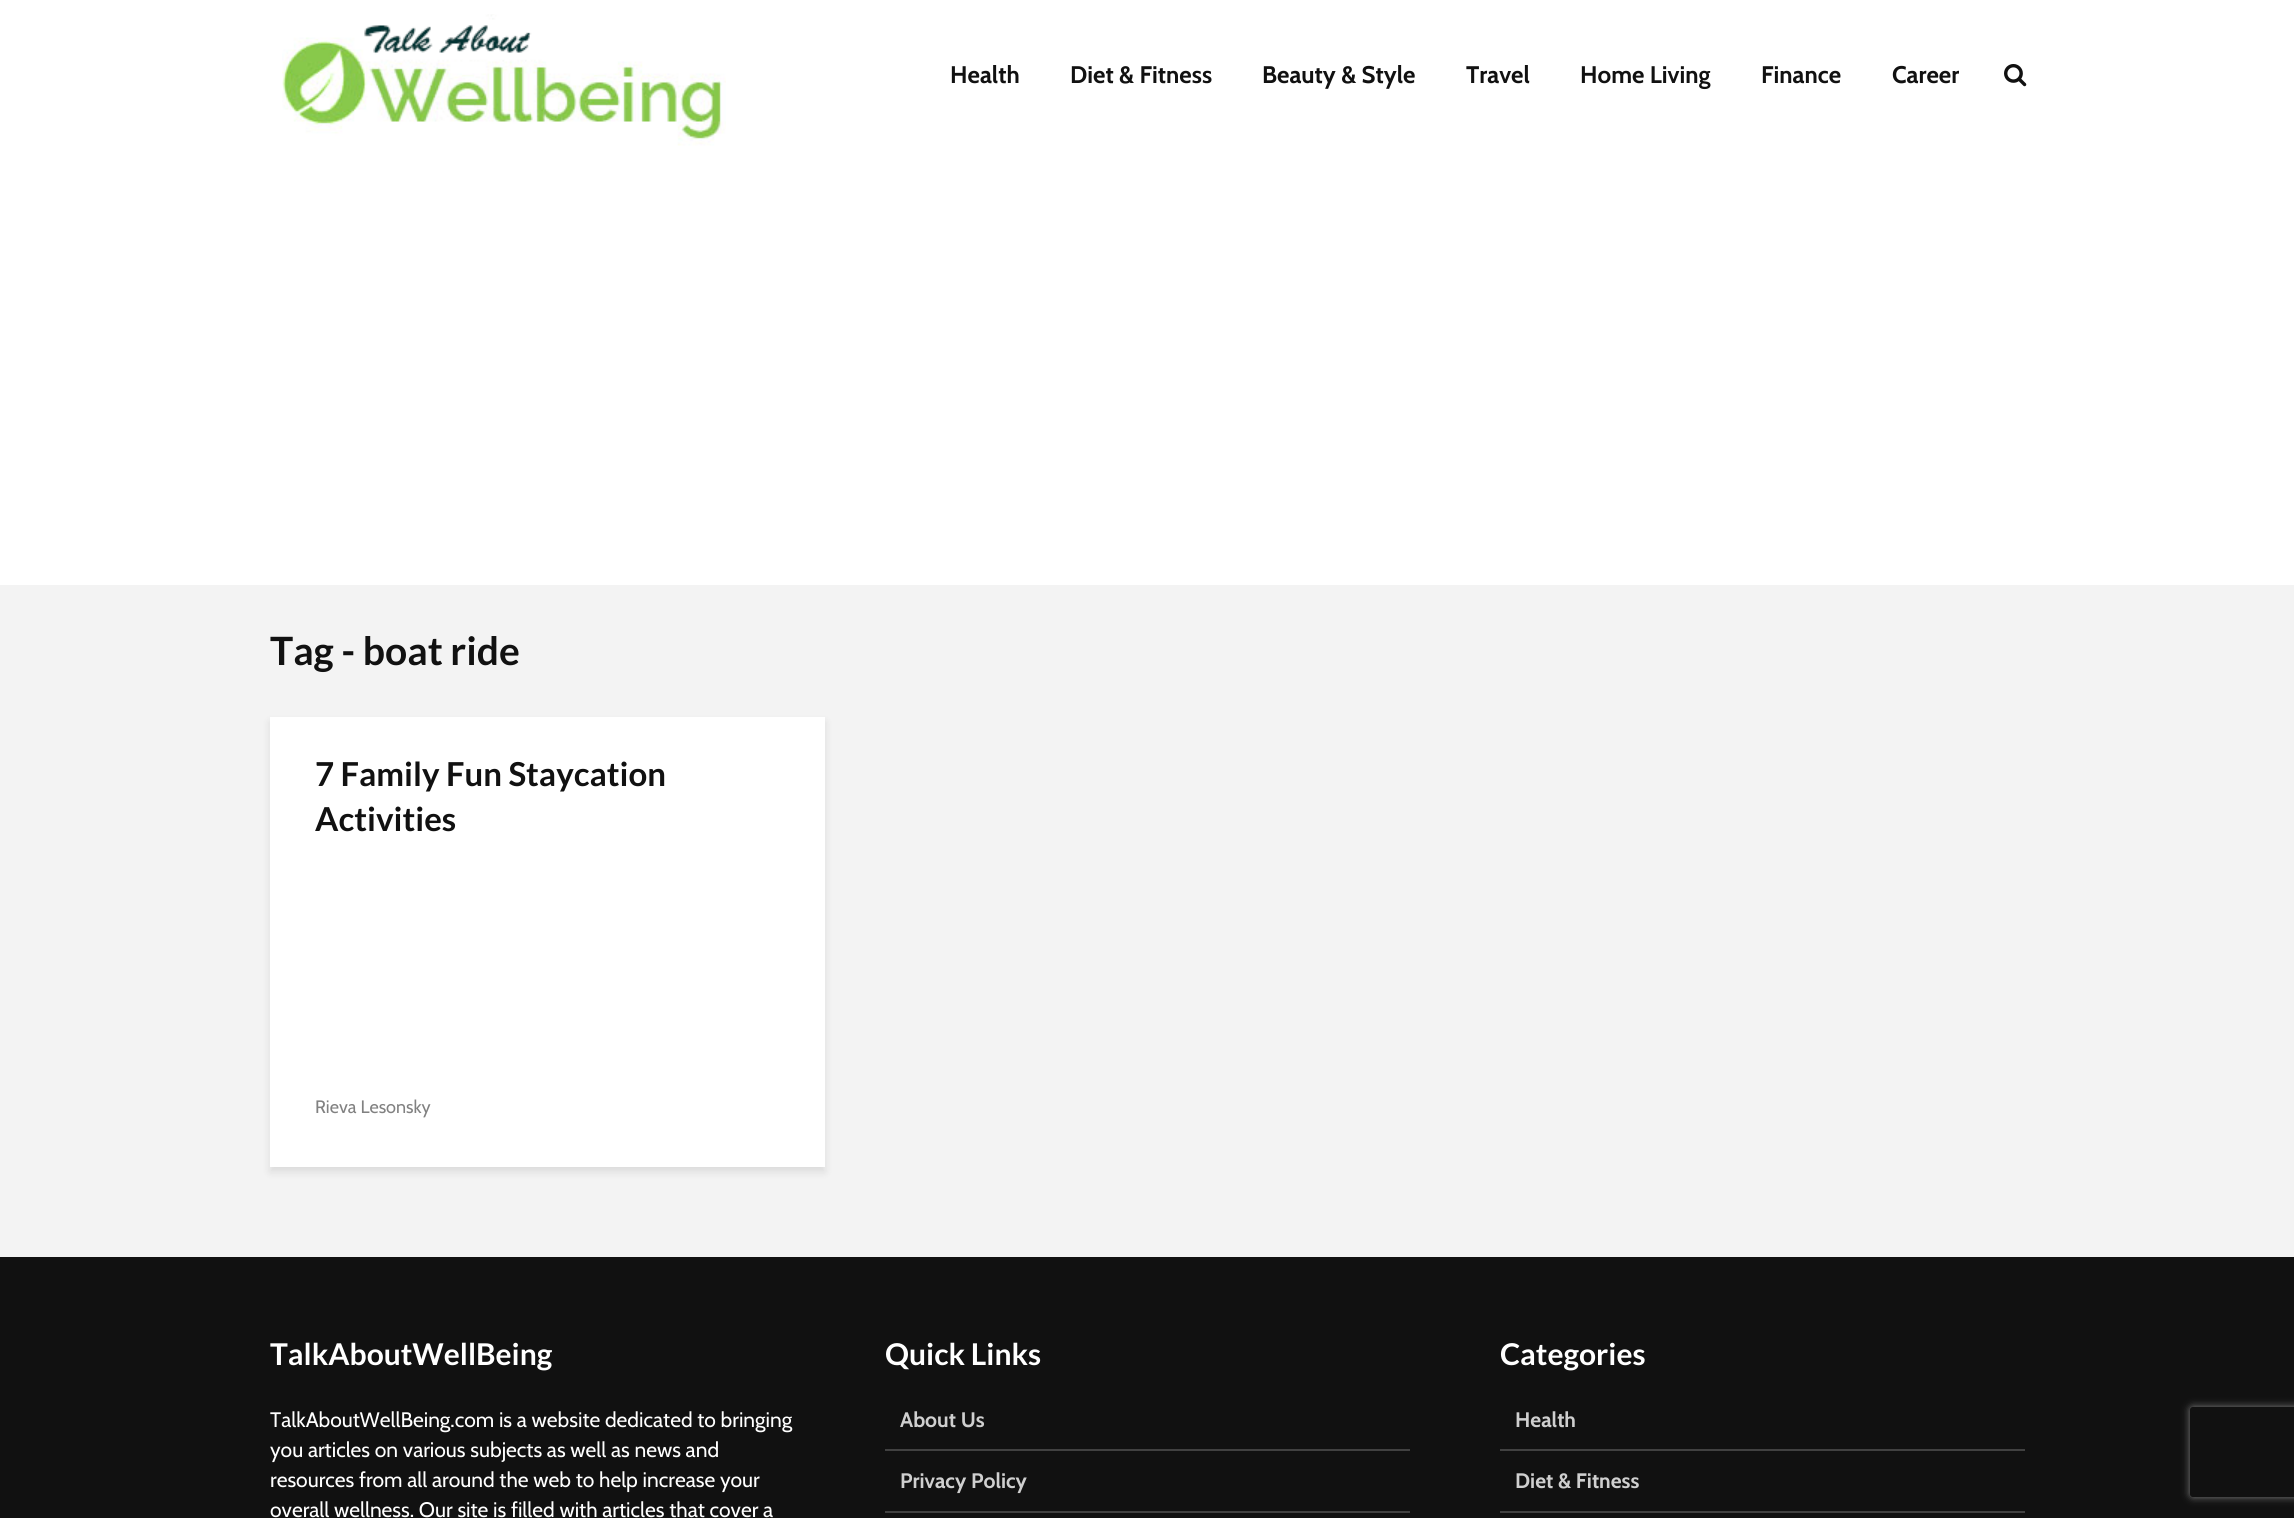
import math
import cairo

surface = cairo.ImageSurface(cairo.FORMAT_RGB24, 2294, 1518)
c = cairo.Context(surface)
options = cairo.FontOptions()
options.set_hint_metrics(cairo.HINT_METRICS_OFF)
options.set_hint_style(cairo.HINT_STYLE_NONE)
c.set_font_options(options)
c.set_miter_limit(4)
def C(code):
 c.set_source_rgb(*(v / 255 for v in bytes.fromhex(code[-6:])))
def F(family, size, italic, bold):
 c.select_font_face(family, cairo.FONT_SLANT_ITALIC if italic else cairo.FONT_SLANT_NORMAL, cairo.FONT_WEIGHT_BOLD if bold else cairo.FONT_WEIGHT_NORMAL)
 c.set_font_size(size)
def T(x, y, s):
 c.move_to(x, y)
 c.show_text(s)
def R(x, y, w, h):
 c.rectangle(x, y, w, h)
 c.fill()
def Q(x, y, w, h, r):
 c.new_sub_path()
 for i, (u, v) in enumerate([(x + w - r, y + h - r), (x + r, y + h - r), (x + r, y + r), (x + w - r, y + r)]):
  c.arc(u, v, r, i * math.pi / 2, (i + 1) * math.pi / 2)
 c.close_path()
def S(x, y, w, h, r, blur, alpha):
 c.push_group_with_content(cairo.CONTENT_ALPHA)
 c.set_operator(cairo.OPERATOR_SOURCE)
 for i in range(15, -16, -2):
  e = blur * i / 6
  if min(w, h) + 2 * e > 0:
   c.set_source_rgba(0, 0, 0, alpha * math.erfc((i - 1) / 8.5) / 2)
   Q(x - e, y - e, w + 2 * e, h + 2 * e, max(0, min(r + e + blur * .6, min(w, h) / 2 + e)))
   c.fill()
 c.mask(c.pop_group())
def I(path, x, y, w, h):
 c.save()
 c.set_source_surface(cairo.ImageSurface.create_from_png(path), x, y)
 c.rectangle(x, y, w, h)
 c.fill()
 c.restore()
C('f3f3f3')
c.paint()
C('ffffff')
R(0,0,2294,585)
I('1.png',282,14,444,132)
F('Cabin',24,0,1)
C('111111')
T(950,83,'Health')
T(1070,83,'Diet & Fitness')
T(1262,83,'Beauty & Style')
T(1466,83,'Travel')
T(1580,83,'Home Living')
T(1761,83,'Finance')
T(1892,83,'Career')
I('2.png',2004,64,23,23)
F('Lato',39,0,1)
T(270,665,'Tag - boat ride')
C('000101')
S(270,722,555,450,0,4,.1)
C('ffffff')
R(270,717,555,450)
F('Lato',33,0,1)
C('111111')
T(315,786,'7 Family Fun Staycation')
T(315,831,'Activities')
F('Cabin',18,0,0)
C('818181')
T(315,1113,'Rieva Lesonsky')
C('111111')
R(0,1257,2294,261)
F('Lato',30,0,1)
C('ffffff')
T(270,1365,'TalkAboutWellBeing')
F('Cabin',21,0,0)
T(270,1427,'TalkAboutWellBeing.com is a website dedicated to bringing')
T(270,1457,'you articles on various subjects as well as news and')
T(270,1487,'resources from all around the web to help increase your')
T(270,1517,'overall wellness. Our site is filled with articles that cover a')
F('Lato',30,0,1)
T(885,1365,'Quick Links')
C('414141')
R(885,1449,525,2)
F('Cabin',21,0,1)
C('cfcfcf')
T(900,1427,'About Us')
C('414141')
R(885,1511,525,2)
C('cfcfcf')
T(900,1488,'Privacy Policy')
F('Lato',30,0,1)
C('ffffff')
T(1500,1365,'Categories')
C('414141')
R(1500,1449,525,2)
F('Cabin',21,0,1)
C('cfcfcf')
T(1515,1427,'Health')
C('414141')
R(1500,1511,525,2)
C('cfcfcf')
T(1515,1488,'Diet & Fitness')
c.save()
c.set_fill_rule(cairo.FILL_RULE_EVEN_ODD)
c.new_path()
c.move_to(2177,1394)
c.line_to(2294,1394)
c.line_to(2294,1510)
c.line_to(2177,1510)
c.close_path()
c.move_to(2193,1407)
c.line_to(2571,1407)
c.curve_to(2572.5,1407,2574,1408.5,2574,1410)
c.line_to(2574,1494)
c.curve_to(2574,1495.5,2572.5,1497,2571,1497)
c.line_to(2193,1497)
c.curve_to(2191.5,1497,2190,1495.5,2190,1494)
c.line_to(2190,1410)
c.curve_to(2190,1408.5,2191.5,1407,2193,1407)
c.close_path()
c.clip()
C('808080')
S(2190,1407,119,90,3,4,1)
c.restore()
surface.write_to_png('o.png')
